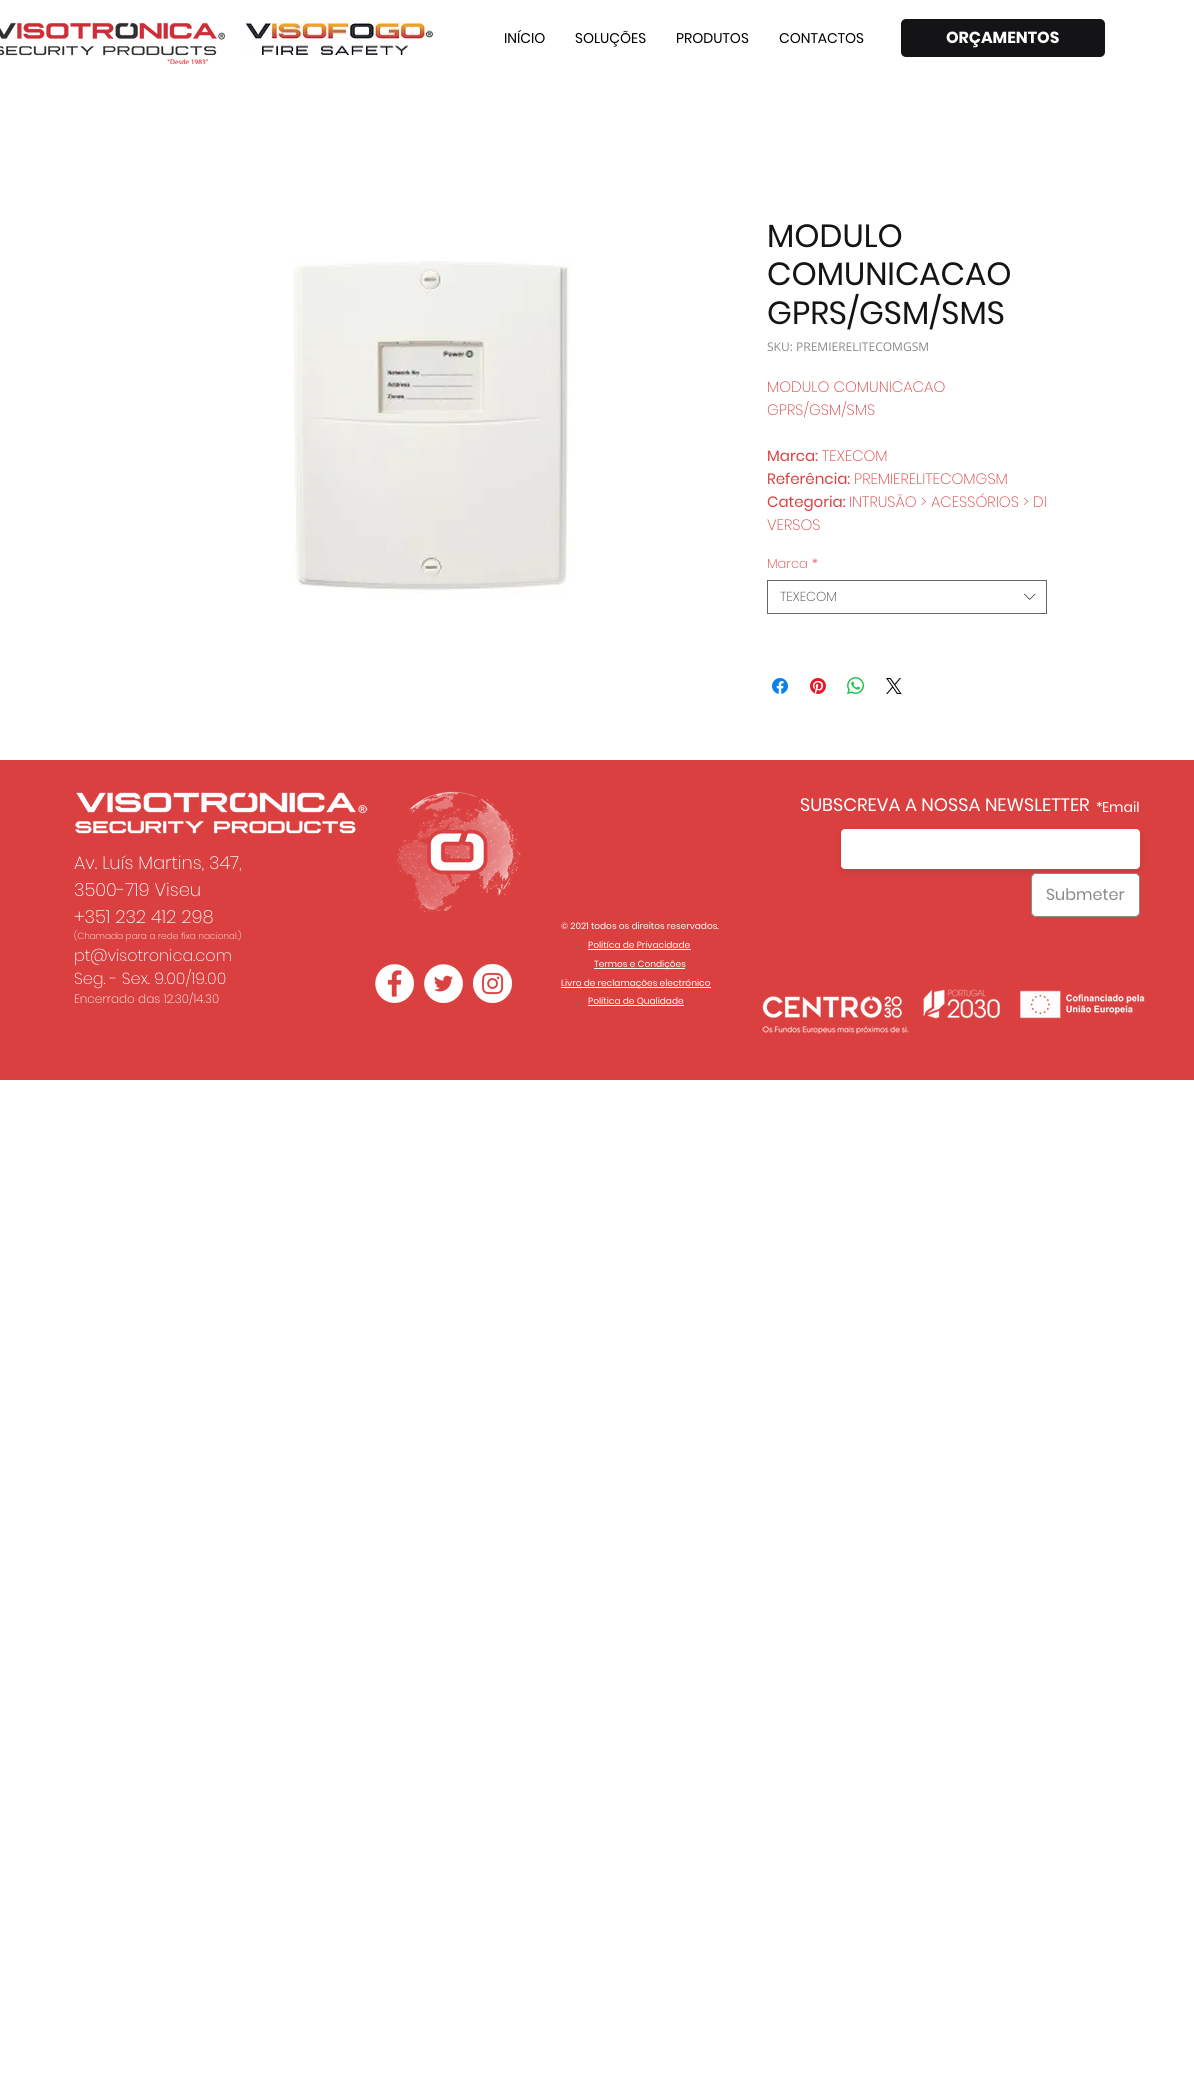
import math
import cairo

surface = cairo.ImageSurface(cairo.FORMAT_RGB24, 1194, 2099)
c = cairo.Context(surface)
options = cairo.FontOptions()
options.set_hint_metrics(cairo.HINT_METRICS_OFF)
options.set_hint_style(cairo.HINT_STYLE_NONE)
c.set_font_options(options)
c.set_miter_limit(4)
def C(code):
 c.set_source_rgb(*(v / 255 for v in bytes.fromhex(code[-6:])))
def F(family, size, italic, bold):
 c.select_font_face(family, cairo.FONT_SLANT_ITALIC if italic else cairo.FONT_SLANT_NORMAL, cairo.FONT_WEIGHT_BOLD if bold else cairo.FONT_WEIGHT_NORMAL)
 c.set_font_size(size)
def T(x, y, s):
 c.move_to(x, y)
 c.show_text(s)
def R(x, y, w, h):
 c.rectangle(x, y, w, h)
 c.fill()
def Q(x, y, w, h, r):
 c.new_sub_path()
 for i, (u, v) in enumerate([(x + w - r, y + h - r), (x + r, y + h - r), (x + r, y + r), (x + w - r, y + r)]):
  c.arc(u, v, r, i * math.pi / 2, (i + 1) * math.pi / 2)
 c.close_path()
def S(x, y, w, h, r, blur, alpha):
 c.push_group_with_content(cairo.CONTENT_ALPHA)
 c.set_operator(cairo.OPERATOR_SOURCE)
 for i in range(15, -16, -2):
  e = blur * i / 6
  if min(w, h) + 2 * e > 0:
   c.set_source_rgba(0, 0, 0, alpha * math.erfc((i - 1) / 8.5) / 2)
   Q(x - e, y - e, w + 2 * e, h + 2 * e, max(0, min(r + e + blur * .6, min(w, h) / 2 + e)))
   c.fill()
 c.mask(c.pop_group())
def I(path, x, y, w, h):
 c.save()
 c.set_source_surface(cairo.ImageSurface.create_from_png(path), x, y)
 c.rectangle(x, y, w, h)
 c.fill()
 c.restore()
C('ffffff')
c.paint()
I('1.png',0,22,226,42)
I('2.png',246,23,187,32)
F('Poppins',14,0,0)
C('000000')
T(504,43,'INÍCIO')
T(575,43,'SOLUÇÕES')
T(676,43,'PRODUTOS')
T(779,43,'CONTACTOS')
C('141416')
Q(901,19,204,38,5)
c.fill()
F('Poppins',16,0,1)
C('ffffff')
T(946,43,'ORÇAMENTOS')
I('3.png',293,259,282,338)
F('Poppins',32,0,0)
C('141416')
T(767,247,'MODULO')
T(767,285,'COMUNICACAO')
T(767,324,'GPRS/GSM/SMS')
F('Open Sans',12,0,0)
C('8a8a8a')
T(767,351,'SKU: PREMIERELITECOMGSM')
F('Poppins ExtraLight',15,0,0)
C('db4040')
T(767,392,'MODULO COMUNICACAO')
T(767,415,'GPRS/GSM/SMS')
F('Poppins',15,0,0)
T(767,461,'Marca:')
F('Poppins ExtraLight',15,0,0)
T(822,461,'TEXECOM')
F('Poppins',15,0,0)
T(767,484,'Referência:')
F('Poppins ExtraLight',15,0,0)
T(854,484,'PREMIERELITECOMGSM')
F('Poppins',15,0,0)
T(767,507,'Categoria:')
F('Poppins ExtraLight',15,0,0)
T(849,507,'INTRUSÃO > ACESSÓRIOS > DI')
T(767,530,'VERSOS')
F('Poppins ExtraLight',13,0,0)
T(767,568,'Marca')
T(812,568,'*')
c.rectangle(767.5,580.5,279,33)
C('666666')
c.set_line_width(1)
c.stroke()
C('444444')
T(780,601,'TEXECOM')
I('4.png',1024,593,12,7)
I('5.png',772,678,16,16)
I('6.png',810,678,16,16)
I('7.png',847,677,17,17)
I('8.png',886,678,16,16)
C('db4040')
R(0,760,1194,320)
I('9.png',75,792,293,42)
I('10.png',397,791,124,121)
F('Poppins ExtraLight',18,0,0)
C('ffffff')
T(74,869,'Av. Luís Martins, 347,')
T(74,896,'3500-719 Viseu')
T(74,923,'+351 232 412 298')
F('Poppins ExtraLight',9,0,0)
T(74,939,'(Chamada para a rede fixa nacional.)')
F('Poppins ExtraLight',16,0,0)
T(74,961,'pt@visotronica.com')
T(74,984,'Seg. - Sex. 9.00/19.00')
F('Poppins ExtraLight',12,0,0)
T(74,1003,'Encerrado das 12.30/14.30')
I('11.png',375,964,39,39)
I('12.png',424,964,39,39)
I('13.png',473,964,39,39)
F('Poppins',9,0,0)
T(561,929,'© 2021 todos os direitos reservados.')
T(588,948,'Politíca de Privacidade')
R(588,949,103,1)
R(594,968,91,1)
T(594,967,'Termos e Condições')
R(561,987,150,1)
T(561,986,'Livro de reclamações electrónico')
R(588,1005,96,1)
T(588,1004,'Política de Qualidade')
F('Poppins',18,0,0)
T(800,811,'SUBSCREVA A NOSSA NEWSLETTER')
F('Poppins',14,0,0)
T(1096,812,'*')
T(1102,812,'Email')
C('000000')
S(840,831,301,42,5,5,.08)
C('ffffff')
Q(841,829,299,40,4)
c.fill()
Q(1031.5,873.5,108,43,4.5)
c.fill_preserve()
C('8a8a8a')
c.stroke()
F('Poppins',16,0,0)
T(1046,900,'Submeter')
I('14.png',762,989,383,45)
surface.write_to_png('o.png')
